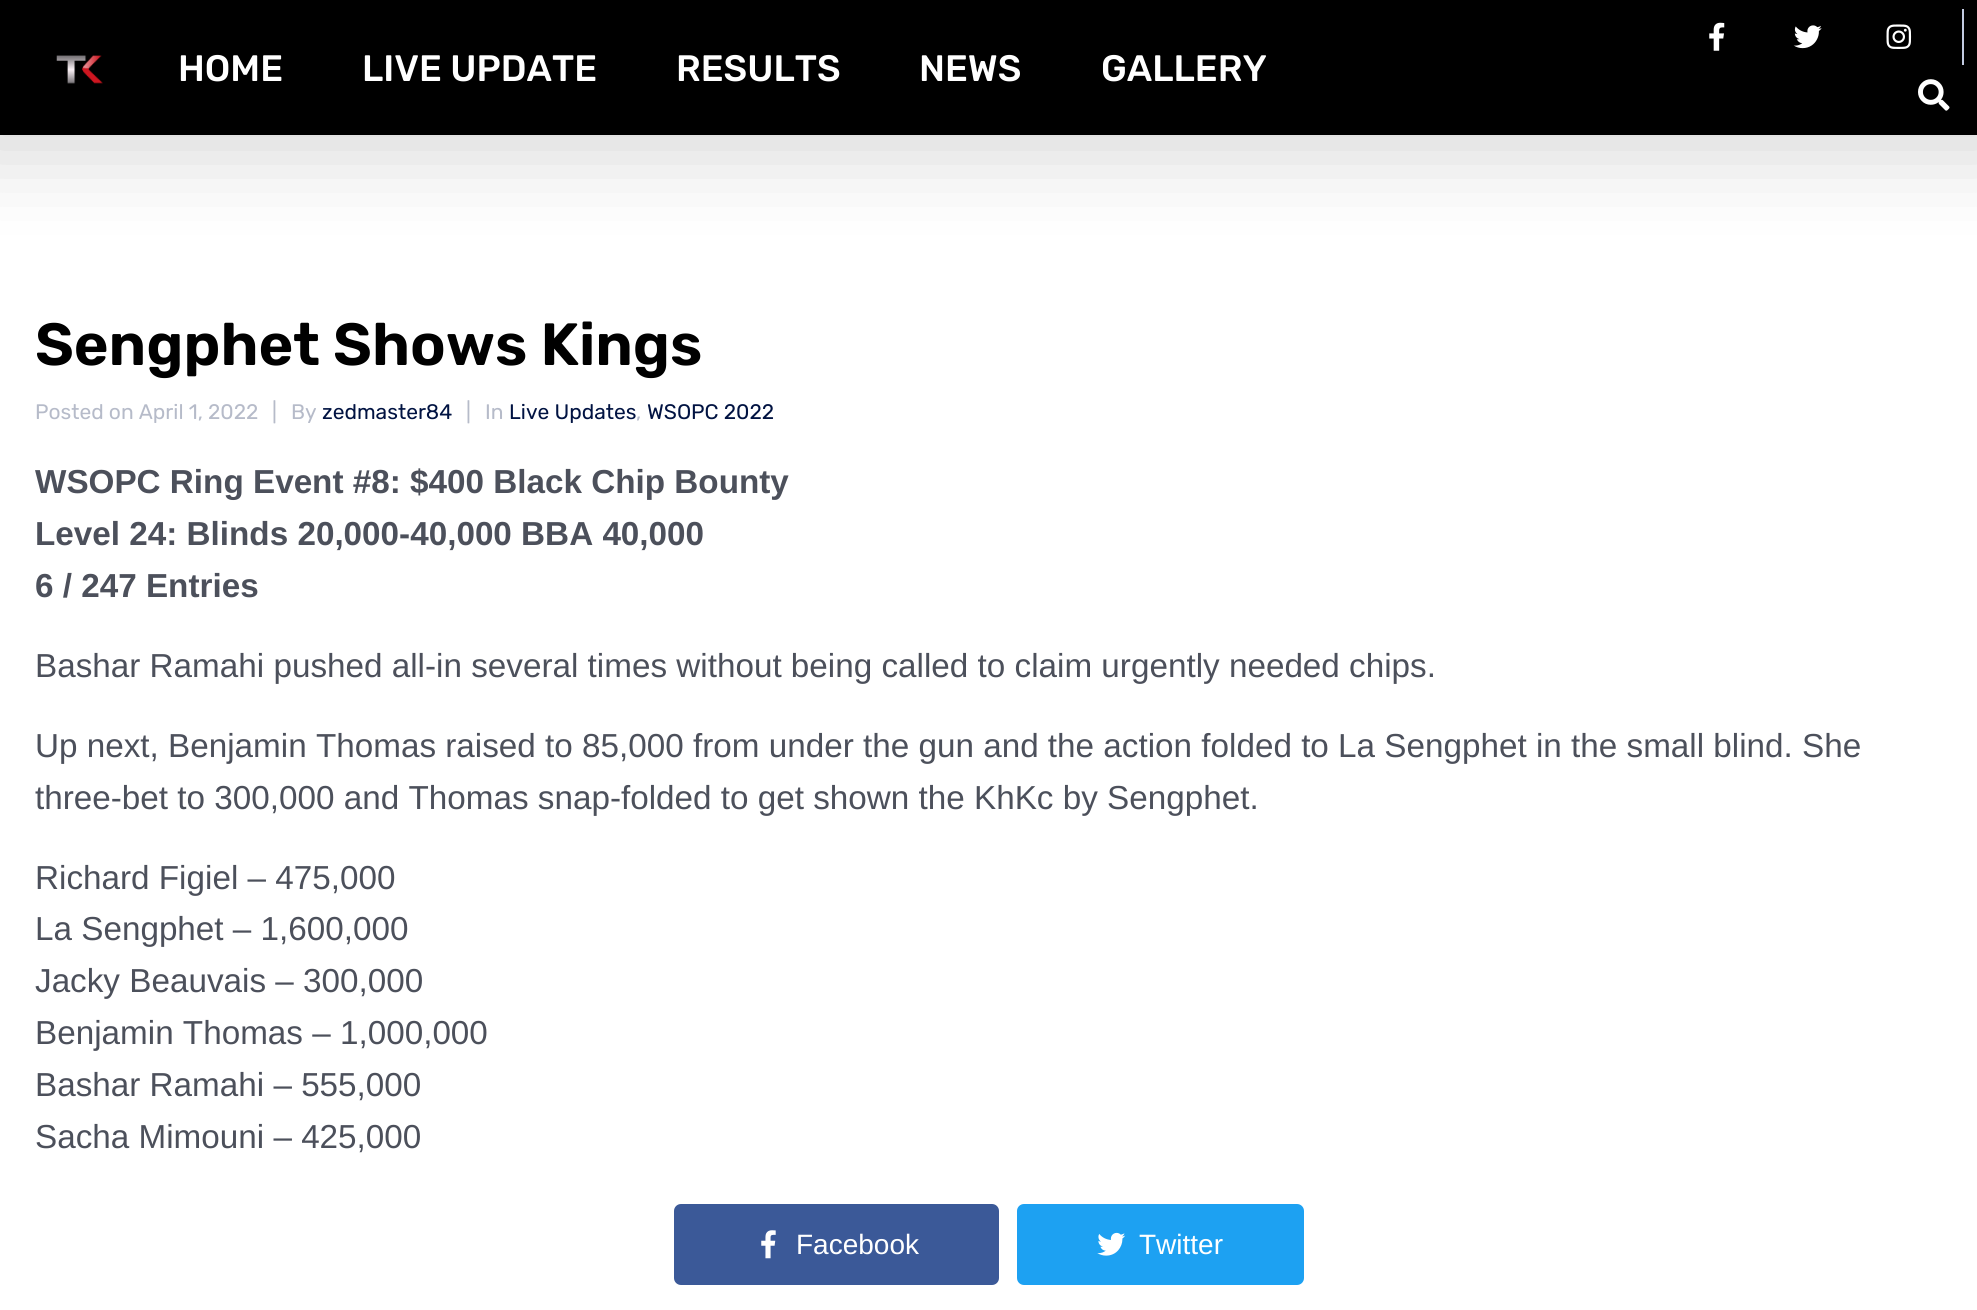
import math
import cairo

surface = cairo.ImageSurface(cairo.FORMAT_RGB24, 1977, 1310)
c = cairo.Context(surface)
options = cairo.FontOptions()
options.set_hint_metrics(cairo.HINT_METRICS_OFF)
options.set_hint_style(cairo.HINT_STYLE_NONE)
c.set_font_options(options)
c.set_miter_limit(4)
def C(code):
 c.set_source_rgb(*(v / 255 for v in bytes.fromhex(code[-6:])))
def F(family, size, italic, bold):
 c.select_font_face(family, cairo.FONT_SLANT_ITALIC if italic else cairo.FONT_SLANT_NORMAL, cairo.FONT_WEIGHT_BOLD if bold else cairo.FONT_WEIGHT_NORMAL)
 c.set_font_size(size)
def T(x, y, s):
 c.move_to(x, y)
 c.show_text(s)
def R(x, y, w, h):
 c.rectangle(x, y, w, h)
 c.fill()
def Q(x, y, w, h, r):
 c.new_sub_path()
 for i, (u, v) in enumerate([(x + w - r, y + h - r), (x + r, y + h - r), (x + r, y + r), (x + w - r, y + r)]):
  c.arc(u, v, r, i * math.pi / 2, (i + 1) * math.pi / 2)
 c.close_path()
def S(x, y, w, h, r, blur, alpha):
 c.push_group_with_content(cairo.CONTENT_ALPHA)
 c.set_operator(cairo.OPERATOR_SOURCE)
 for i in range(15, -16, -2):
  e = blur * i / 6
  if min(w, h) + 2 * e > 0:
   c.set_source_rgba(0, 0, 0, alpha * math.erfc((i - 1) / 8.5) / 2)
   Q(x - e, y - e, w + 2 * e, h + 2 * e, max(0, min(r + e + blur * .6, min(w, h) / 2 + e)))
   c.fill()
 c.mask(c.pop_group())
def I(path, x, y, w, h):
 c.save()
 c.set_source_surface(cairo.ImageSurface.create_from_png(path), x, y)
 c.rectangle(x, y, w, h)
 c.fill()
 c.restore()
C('ffffff')
c.paint()
C('000000')
S(-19,-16,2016,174,0,42,.15)
C('000000')
R(0,0,1977,135)
I('1.png',56,55,47,29)
F('Rubik Medium',36.75,0,0)
C('ffffff')
T(178,81,'HOME')
T(362,81,'LIVE UPDATE')
T(676,81,'RESULTS')
T(919,81,'NEWS')
T(1101,81,'GALLERY')
C('c3cbe1')
R(1962,9,2,56)
I('2.png',1709,22,16,29)
I('3.png',1793,25,29,24)
I('4.png',1886,24,26,25)
I('5.png',1918,79,32,32)
F('Rubik SemiBold',59.5,0,0)
C('000000')
T(35,365,'Sengphet Shows Kings')
F('Rubik',21,0,0)
C('b6bbc9')
T(35,419,'Posted on April 1, 2022')
T(272,419,'|')
T(291,419,'By')
C('011342')
T(322,419,'zedmaster84')
C('b6bbc9')
T(466,419,'|')
T(485,419,'In')
C('011342')
T(509,419,'Live Updates')
C('b6bbc9')
T(636,419,',')
C('011342')
T(647,419,'WSOPC 2022')
F('Liberation Sans',33.25,0,1)
C('4c505b')
T(35,493,'WSOPC Ring Event #8: $400 Black Chip Bounty')
T(35,545,'Level 24: Blinds 20,000-40,000 BBA 40,000')
T(35,597,'6 / 247 Entries')
F('Liberation Sans',33.25,0,0)
T(35,677,'Bashar Ramahi pushed all-in several times without being called to claim urgently needed chips.')
T(35,757,'Up next, Benjamin Thomas raised to 85,000 from under the gun and the action folded to La Sengphet in the small blind. She')
T(35,809,'three-bet to 300,000 and Thomas snap-folded to get shown the KhKc by Sengphet.')
T(35,889,'Richard Figiel – 475,000')
T(35,940,'La Sengphet – 1,600,000')
T(35,992,'Jacky Beauvais – 300,000')
T(35,1044,'Benjamin Thomas – 1,000,000')
T(35,1096,'Bashar Ramahi – 555,000')
T(35,1148,'Sacha Mimouni – 425,000')
C('3b5998')
Q(674,1204,325,81,7)
c.fill()
I('6.png',761,1230,15,29)
F('Liberation Sans',28,0,0)
C('ffffff')
T(796,1254,'Facebook')
C('1da1f2')
Q(1017,1204,287,81,7)
c.fill()
I('7.png',1097,1232,29,24)
C('ffffff')
T(1139,1254,'Twitter')
surface.write_to_png('o.png')
